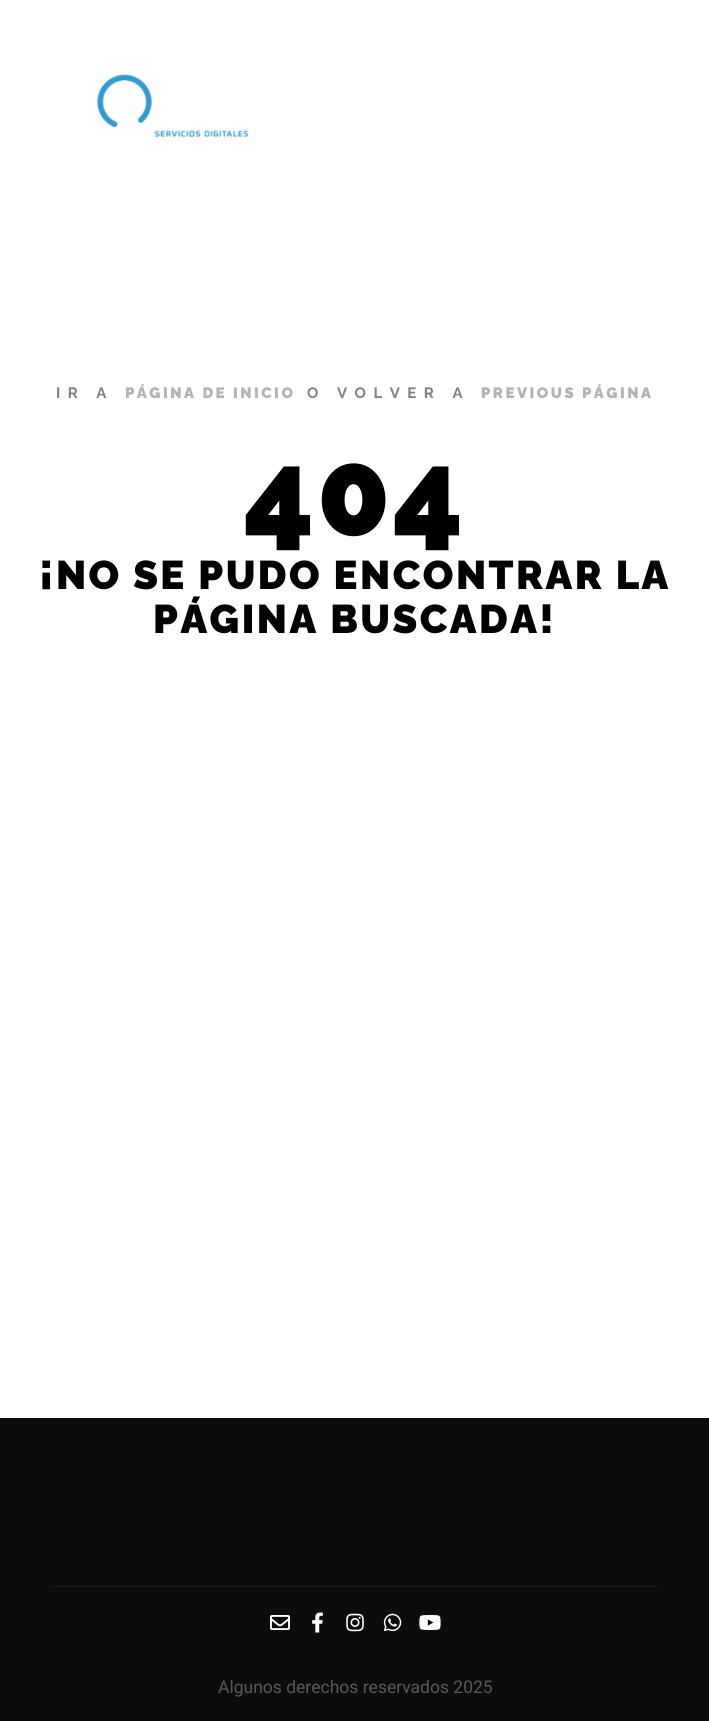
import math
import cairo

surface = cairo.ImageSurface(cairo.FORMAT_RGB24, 709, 1721)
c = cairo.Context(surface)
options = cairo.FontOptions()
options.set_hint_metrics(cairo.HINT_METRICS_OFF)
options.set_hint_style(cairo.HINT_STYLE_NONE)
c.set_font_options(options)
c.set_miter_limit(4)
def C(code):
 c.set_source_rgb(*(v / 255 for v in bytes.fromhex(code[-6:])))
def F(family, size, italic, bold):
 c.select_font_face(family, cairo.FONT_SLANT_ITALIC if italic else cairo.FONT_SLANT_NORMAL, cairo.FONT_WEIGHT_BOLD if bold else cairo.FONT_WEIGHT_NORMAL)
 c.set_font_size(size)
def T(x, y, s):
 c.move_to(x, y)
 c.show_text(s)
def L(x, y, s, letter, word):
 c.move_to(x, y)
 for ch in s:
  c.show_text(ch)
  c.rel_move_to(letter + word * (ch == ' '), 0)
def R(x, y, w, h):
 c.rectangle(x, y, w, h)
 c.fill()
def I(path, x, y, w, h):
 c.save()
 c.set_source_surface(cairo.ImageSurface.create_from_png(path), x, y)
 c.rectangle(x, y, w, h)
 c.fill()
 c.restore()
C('ffffff')
c.paint()
I('1.png',96,74,153,64)
F('Raleway',15,0,1)
C('808080')
L(56,398,'IR A',7.5,0)
F('Raleway Black',15,0,0)
C('b3b3b3')
L(125,398,'PÁGINA DE INICIO',2.5,0)
F('Raleway',15,0,1)
C('808080')
L(307,398,'O VOLVER A',7.5,0)
F('Raleway Black',15,0,0)
C('b3b3b3')
L(481,398,'PREVIOUS PÁGINA',2.5,0)
F('Raleway Black',120,0,0)
C('000000')
L(244,535,'404',2.5,0)
F('Raleway Black',40,0,0)
L(39,589,'¡NO SE PUDO ENCONTRAR LA',2.5,0)
L(153,633,'PÁGINA BUSCADA!',2.5,0)
C('0c0c0c')
R(0,1418,709,303)
C('1b1b1b')
R(50,1586,610,1)
I('2.png',270,1615,20,15)
I('3.png',312,1612,11,21)
I('4.png',346,1613,18,19)
I('5.png',383,1613,19,19)
I('6.png',419,1615,22,15)
F('Roboto',17.5,0,0)
C('595959')
T(218,1693,'Algunos derechos reservados 2025')
surface.write_to_png('o.png')
